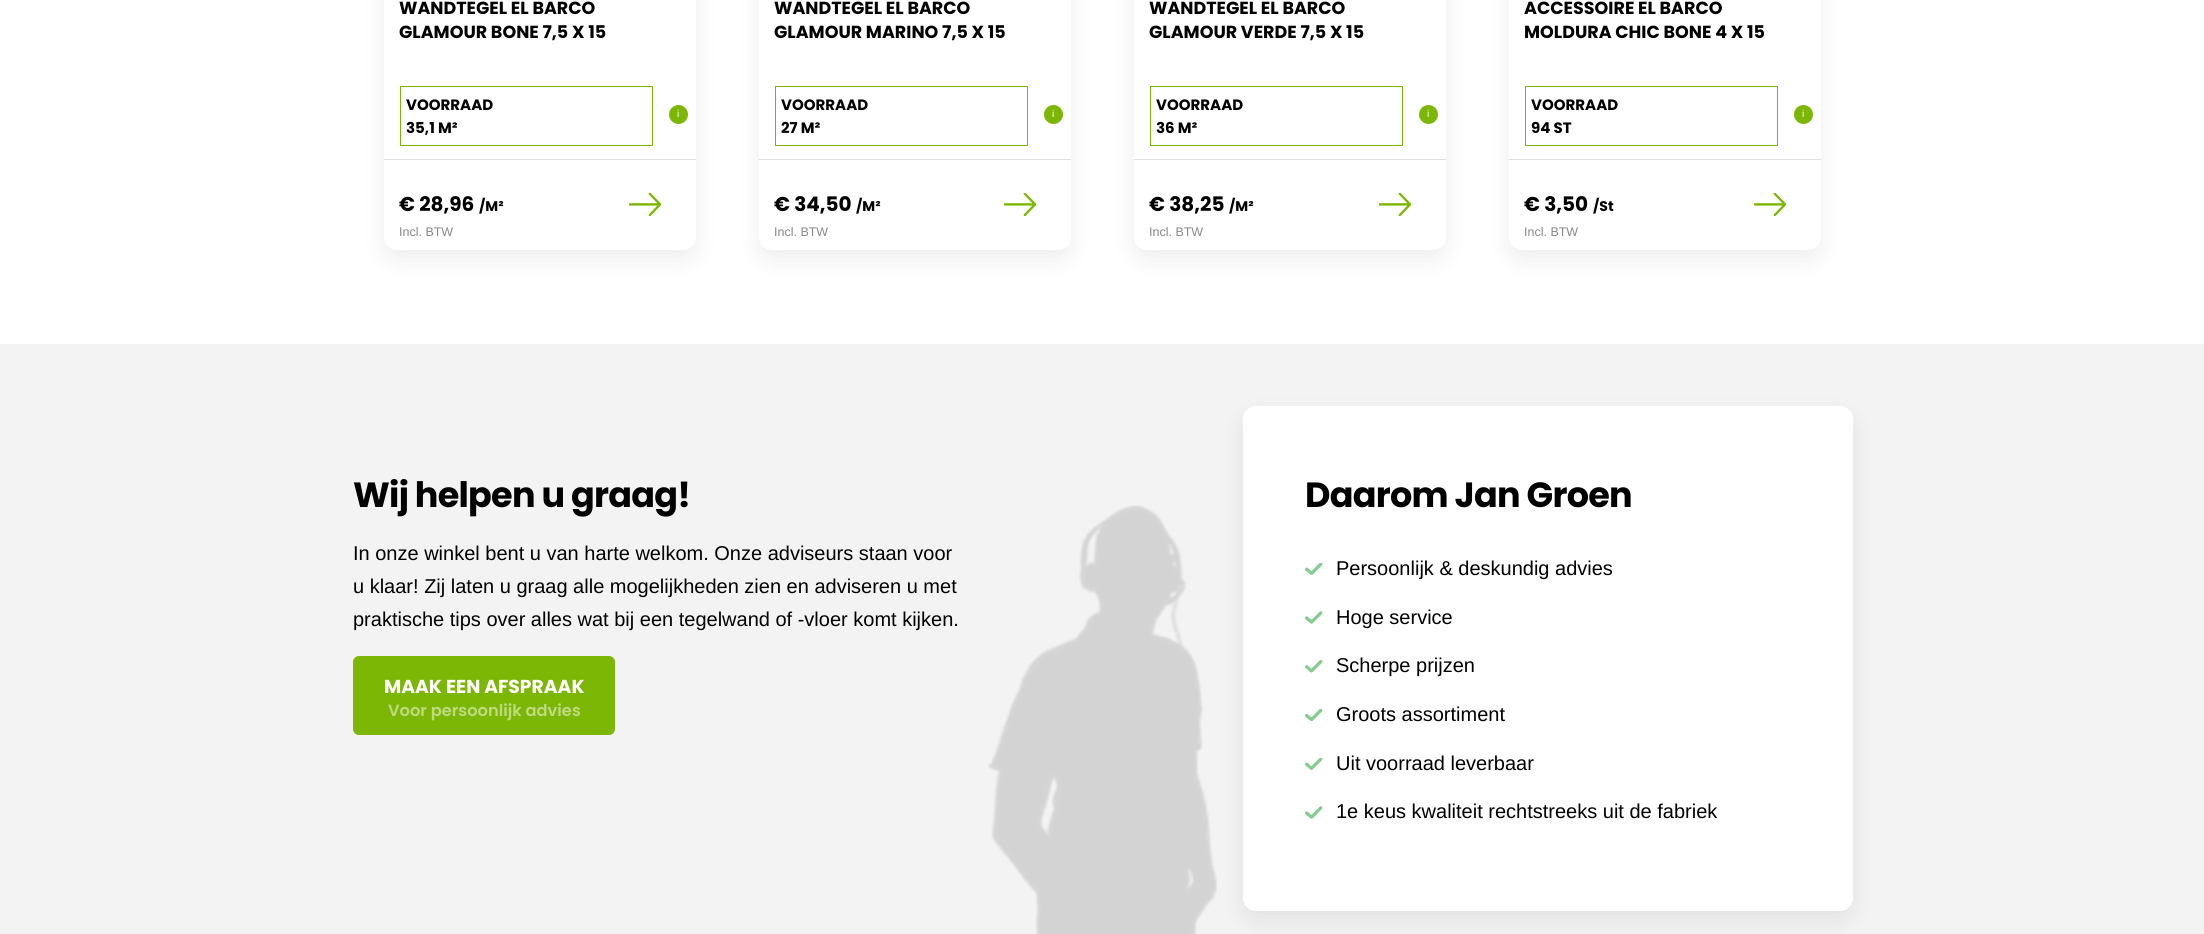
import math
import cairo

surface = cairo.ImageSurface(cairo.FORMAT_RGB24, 2204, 934)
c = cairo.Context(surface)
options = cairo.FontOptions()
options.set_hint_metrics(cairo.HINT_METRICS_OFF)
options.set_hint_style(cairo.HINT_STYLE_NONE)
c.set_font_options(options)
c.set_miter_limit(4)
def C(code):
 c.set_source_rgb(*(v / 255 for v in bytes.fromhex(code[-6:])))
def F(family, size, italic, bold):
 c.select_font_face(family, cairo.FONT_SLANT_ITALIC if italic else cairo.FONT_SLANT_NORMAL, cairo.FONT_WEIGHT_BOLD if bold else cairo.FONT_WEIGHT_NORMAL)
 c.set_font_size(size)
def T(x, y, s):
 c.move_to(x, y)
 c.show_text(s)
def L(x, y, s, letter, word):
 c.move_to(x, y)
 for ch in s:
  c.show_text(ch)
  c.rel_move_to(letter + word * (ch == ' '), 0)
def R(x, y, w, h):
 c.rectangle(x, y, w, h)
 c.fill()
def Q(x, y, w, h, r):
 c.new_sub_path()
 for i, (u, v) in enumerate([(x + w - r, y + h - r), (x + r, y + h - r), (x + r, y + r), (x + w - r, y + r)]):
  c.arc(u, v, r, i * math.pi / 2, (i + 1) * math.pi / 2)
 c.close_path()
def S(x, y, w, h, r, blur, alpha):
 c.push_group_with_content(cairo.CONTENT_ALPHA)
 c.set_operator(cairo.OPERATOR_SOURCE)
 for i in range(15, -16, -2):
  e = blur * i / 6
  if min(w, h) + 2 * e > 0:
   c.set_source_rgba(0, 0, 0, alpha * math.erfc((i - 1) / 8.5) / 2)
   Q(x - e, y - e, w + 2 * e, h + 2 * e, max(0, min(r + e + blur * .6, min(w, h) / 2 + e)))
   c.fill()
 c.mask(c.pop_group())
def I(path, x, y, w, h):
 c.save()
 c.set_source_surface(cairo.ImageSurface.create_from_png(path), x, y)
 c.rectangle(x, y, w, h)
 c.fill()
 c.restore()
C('ffffff')
c.paint()
C('000000')
S(384,-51,312,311,13,12.5,.07)
C('ffffff')
Q(384,-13,312,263,13)
c.fill()
F('Poppins',17.5,0,1)
C('000000')
T(399,14,'WANDTEGEL EL BARCO')
T(399,38,'GLAMOUR BONE 7,5 X 15')
c.rectangle(400.5,86.5,252,59)
C('7db705')
c.set_line_width(1)
c.stroke()
F('Poppins',15,0,1)
C('000000')
T(406,110,'VOORRAAD')
T(406,133,'35,1 M²')
C('dfdfdf')
R(384,159,312,1)
F('Poppins',20,0,1)
C('000000')
T(399,211,'€ 28,96')
F('Poppins',14,0,1)
T(479,211,'/M²')
F('Liberation Sans',12.5,0,0)
C('888888')
T(399,236,'Incl. BTW')
I('1.png',629,193,32,23)
C('7db705')
c.arc(678.5,114.5,9.5,0,2 * math.pi)
c.fill()
F('Liberation Sans',10,0,0)
C('ffffff')
T(677,117,'i')
C('000000')
S(759,-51,312,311,13,12.5,.07)
C('ffffff')
Q(759,-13,312,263,13)
c.fill()
F('Poppins',17.5,0,1)
C('000000')
T(774,14,'WANDTEGEL EL BARCO')
T(774,38,'GLAMOUR MARINO 7,5 X 15')
c.rectangle(775.5,86.5,252,59)
C('7db705')
c.stroke()
F('Poppins',15,0,1)
C('000000')
T(781,110,'VOORRAAD')
T(781,133,'27 M²')
C('dfdfdf')
R(759,159,312,1)
F('Poppins',20,0,1)
C('000000')
T(774,211,'€ 34,50')
F('Poppins',14,0,1)
T(856,211,'/M²')
F('Liberation Sans',12.5,0,0)
C('888888')
T(774,236,'Incl. BTW')
I('1.png',1004,193,32,23)
C('7db705')
c.arc(1053.5,114.5,9.5,0,2 * math.pi)
c.fill()
F('Liberation Sans',10,0,0)
C('ffffff')
T(1052,117,'i')
C('000000')
S(1134,-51,312,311,13,12.5,.07)
C('ffffff')
Q(1134,-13,312,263,13)
c.fill()
F('Poppins',17.5,0,1)
C('000000')
T(1149,14,'WANDTEGEL EL BARCO')
T(1149,38,'GLAMOUR VERDE 7,5 X 15')
c.rectangle(1150.5,86.5,252,59)
C('7db705')
c.stroke()
F('Poppins',15,0,1)
C('000000')
T(1156,110,'VOORRAAD')
T(1156,133,'36 M²')
C('dfdfdf')
R(1134,159,312,1)
F('Poppins',20,0,1)
C('000000')
T(1149,211,'€ 38,25')
F('Poppins',14,0,1)
T(1229,211,'/M²')
F('Liberation Sans',12.5,0,0)
C('888888')
T(1149,236,'Incl. BTW')
I('1.png',1379,193,32,23)
C('7db705')
c.arc(1428.5,114.5,9.5,0,2 * math.pi)
c.fill()
F('Liberation Sans',10,0,0)
C('ffffff')
T(1427,117,'i')
C('000000')
S(1509,-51,312,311,13,12.5,.07)
C('ffffff')
Q(1509,-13,312,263,13)
c.fill()
F('Poppins',17.5,0,1)
C('000000')
T(1524,14,'ACCESSOIRE EL BARCO')
T(1524,38,'MOLDURA CHIC BONE 4 X 15')
c.rectangle(1525.5,86.5,252,59)
C('7db705')
c.stroke()
F('Poppins',15,0,1)
C('000000')
T(1531,110,'VOORRAAD')
T(1531,133,'94 ST')
C('dfdfdf')
R(1509,159,312,1)
F('Poppins',20,0,1)
C('000000')
T(1524,211,'€ 3,50')
F('Poppins',14,0,1)
T(1593,211,'/St')
F('Liberation Sans',12.5,0,0)
C('888888')
T(1524,236,'Incl. BTW')
I('1.png',1754,193,32,23)
C('7db705')
c.arc(1803.5,114.5,9.5,0,2 * math.pi)
c.fill()
F('Liberation Sans',10,0,0)
C('ffffff')
T(1802,117,'i')
C('f3f3f3')
R(0,344,2204,590)
F('Poppins',35,0,1)
C('000000')
L(353,507,'Wij helpen u graag!',-.75,0)
F('Liberation Sans',20,0,0)
T(353,560,'In onze winkel bent u van harte welkom. Onze adviseurs staan voor')
T(353,593,'u klaar! Zij laten u graag alle mogelijkheden zien en adviseren u met')
T(353,626,'praktische tips over alles wat bij een tegelwand of -vloer komt kijken.')
C('7db705')
Q(353,656,262,79,6)
c.fill()
F('Poppins',18.75,0,1)
C('ffffff')
T(384,693,'MAAK EEN AFSPRAAK')
F('Poppins SemiBold',16.25,0,0)
C('bedb82')
T(388,716,'Voor persoonlijk advies')
I('2.png',988,505,229,429)
C('000000')
S(1243,416,610,505,13,12.5,.07)
C('ffffff')
Q(1243,406,610,505,13)
c.fill()
F('Poppins',35,0,1)
C('000000')
L(1305,507,'Daarom Jan Groen',-.75,0)
I('3.png',1305,563,18,12)
F('Liberation Sans',20,0,0)
T(1336,575,'Persoonlijk & deskundig advies')
I('4.png',1305,611,18,13)
T(1336,624,'Hoge service')
I('5.png',1305,660,18,13)
T(1336,672,'Scherpe prijzen')
I('6.png',1305,709,18,12)
T(1336,721,'Groots assortiment')
I('3.png',1305,758,18,12)
T(1336,770,'Uit voorraad leverbaar')
I('4.png',1305,806,18,13)
T(1336,818,'1e keus kwaliteit rechtstreeks uit de fabriek')
surface.write_to_png('o.png')
